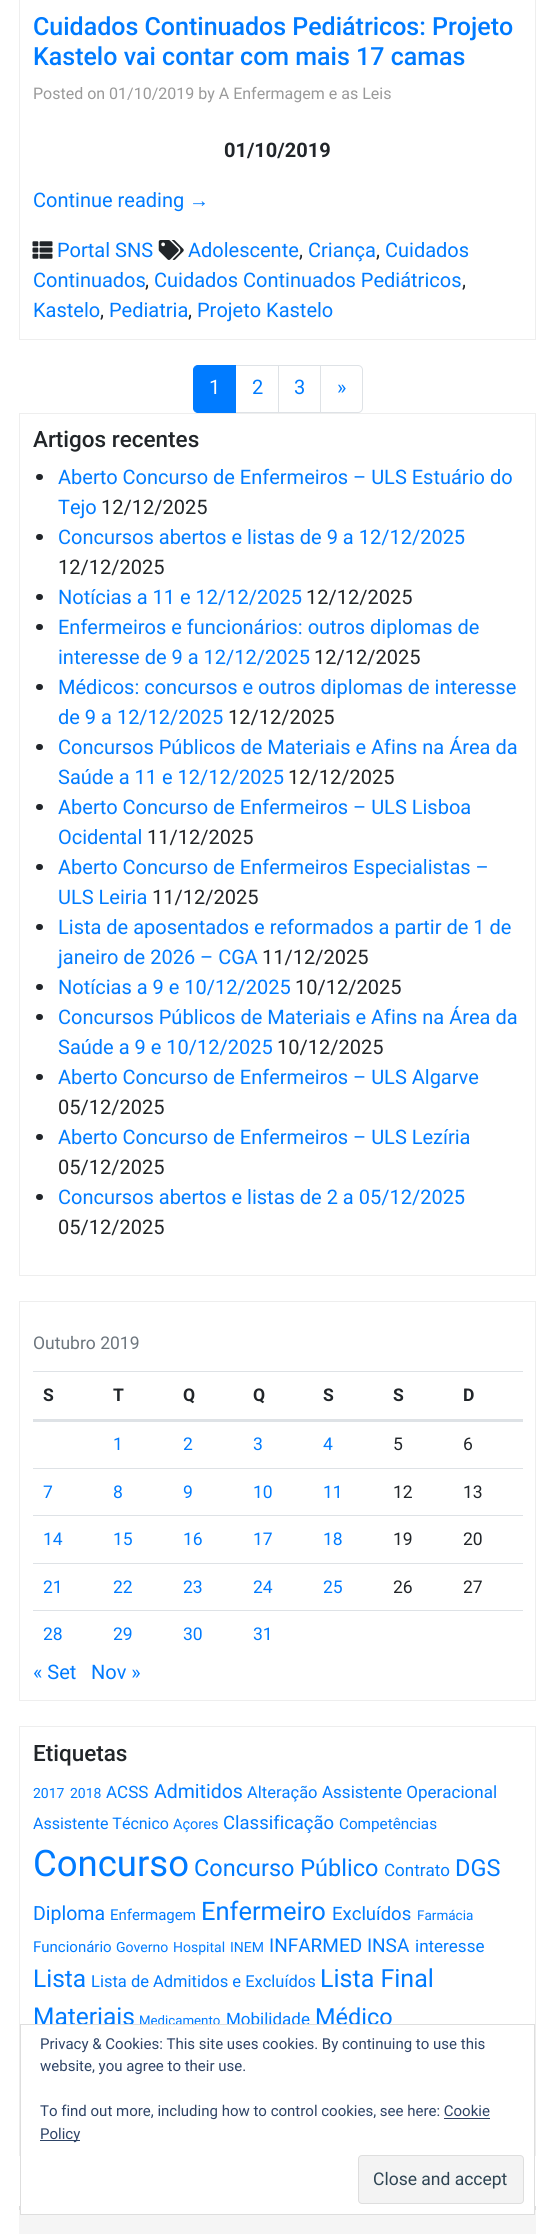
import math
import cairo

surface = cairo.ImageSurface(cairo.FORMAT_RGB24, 554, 2234)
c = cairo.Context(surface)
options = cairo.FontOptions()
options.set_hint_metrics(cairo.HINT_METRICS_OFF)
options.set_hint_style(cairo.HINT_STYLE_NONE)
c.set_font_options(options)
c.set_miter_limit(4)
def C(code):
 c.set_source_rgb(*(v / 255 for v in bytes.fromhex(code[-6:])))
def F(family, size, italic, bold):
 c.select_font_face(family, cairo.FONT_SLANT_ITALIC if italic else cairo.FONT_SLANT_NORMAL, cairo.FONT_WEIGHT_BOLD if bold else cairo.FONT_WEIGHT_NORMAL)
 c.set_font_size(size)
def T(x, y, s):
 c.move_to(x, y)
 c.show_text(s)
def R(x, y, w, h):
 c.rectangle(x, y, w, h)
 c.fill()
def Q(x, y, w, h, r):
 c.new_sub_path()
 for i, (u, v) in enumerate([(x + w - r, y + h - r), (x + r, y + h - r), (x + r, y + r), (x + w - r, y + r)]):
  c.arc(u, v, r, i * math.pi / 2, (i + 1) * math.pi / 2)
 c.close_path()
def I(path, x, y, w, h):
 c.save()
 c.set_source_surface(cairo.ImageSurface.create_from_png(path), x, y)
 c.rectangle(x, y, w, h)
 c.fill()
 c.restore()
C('ffffff')
c.paint()
c.rectangle(19.5,-.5,516,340)
C('eeeeee')
c.set_line_width(1)
c.stroke()
F('Roboto Medium',25,0,0)
C('007bff')
T(33,35,'Cuidados Continuados Pediátricos: Projeto')
T(33,65,'Kastelo vai contar com mais 17 camas')
F('Roboto',16,0,0)
C('999999')
T(33,99,'Posted on 01/10/2019 by A Enfermagem e as Leis')
F('Roboto',20,0,1)
C('212529')
T(224,157,'01/10/2019')
F('Roboto',20,0,0)
C('007bff')
T(33,207,'Continue reading')
F('Liberation Sans',20,0,0)
T(189,207,'→')
I('1.png',158,240,26,20)
F('Roboto',20,0,0)
T(188,257,'Adolescente')
C('212529')
T(299,257,',')
C('007bff')
T(308,257,'Criança')
C('212529')
T(376,257,',')
C('007bff')
T(385,257,'Cuidados')
T(33,287,'Continuados')
C('212529')
T(145,287,',')
C('007bff')
T(154,287,'Cuidados Continuados Pediátricos')
C('212529')
T(462,287,',')
C('007bff')
T(33,317,'Kastelo')
C('212529')
T(100,317,',')
C('007bff')
T(109,317,'Pediatria')
C('212529')
T(188,317,',')
C('007bff')
T(197,317,'Projeto Kastelo')
I('2.png',32,241,21,18)
T(57,257,'Portal SNS')
c.rectangle(235.5,365.5,43,47)
C('dee2e6')
c.stroke()
C('007bff')
c.new_path()
c.move_to(198,365.5)
c.line_to(235.5,365.5)
c.line_to(235.5,412.5)
c.line_to(198,412.5)
c.curve_to(195.5,412.5,193.5,410.5,193.5,408)
c.line_to(193.5,370)
c.curve_to(193.5,367.5,195.5,365.5,198,365.5)
c.close_path()
c.fill_preserve()
c.stroke()
C('ffffff')
T(209,394,'1')
C('007bff')
T(252,394,'2')
c.rectangle(278.5,365.5,42,47)
C('dee2e6')
c.stroke()
C('007bff')
T(294,394,'3')
C('ffffff')
c.new_path()
c.move_to(320.5,365.5)
c.line_to(358,365.5)
c.curve_to(360.5,365.5,362.5,367.5,362.5,370)
c.line_to(362.5,408)
c.curve_to(362.5,410.5,360.5,412.5,358,412.5)
c.line_to(320.5,412.5)
c.close_path()
c.fill_preserve()
C('dee2e6')
c.stroke()
C('007bff')
T(337,394,'»')
c.rectangle(19.5,413.5,516,862)
C('eeeeee')
c.stroke()
F('Roboto Medium',22.5,0,0)
C('212529')
T(33,447,'Artigos recentes')
Q(36,474,7,6,3)
c.fill()
F('Roboto',20,0,0)
C('007bff')
T(58,484,'Aberto Concurso de Enfermeiros – ULS Estuário do')
T(58,514,'Tejo')
C('212529')
T(101,514,'12/12/2025')
Q(36,534,7,6,3)
c.fill()
C('007bff')
T(58,544,'Concursos abertos e listas de 9 a 12/12/2025')
C('212529')
T(58,574,'12/12/2025')
Q(36,594,7,6,3)
c.fill()
C('007bff')
T(58,604,'Notícias a 11 e 12/12/2025')
C('212529')
T(306,604,'12/12/2025')
Q(36,624,7,6,3)
c.fill()
C('007bff')
T(58,634,'Enfermeiros e funcionários: outros diplomas de')
T(58,664,'interesse de 9 a 12/12/2025')
C('212529')
T(314,664,'12/12/2025')
Q(36,684,7,6,3)
c.fill()
C('007bff')
T(58,694,'Médicos: concursos e outros diplomas de interesse')
T(58,724,'de 9 a 12/12/2025')
C('212529')
T(228,724,'12/12/2025')
Q(36,744,7,6,3)
c.fill()
C('007bff')
T(58,754,'Concursos Públicos de Materiais e Afins na Área da')
T(58,784,'Saúde a 11 e 12/12/2025')
C('212529')
T(288,784,'12/12/2025')
Q(36,804,7,6,3)
c.fill()
C('007bff')
T(58,814,'Aberto Concurso de Enfermeiros – ULS Lisboa')
T(58,844,'Ocidental')
C('212529')
T(147,844,'11/12/2025')
Q(36,864,7,6,3)
c.fill()
C('007bff')
T(58,874,'Aberto Concurso de Enfermeiros Especialistas –')
T(58,904,'ULS Leiria')
C('212529')
T(152,904,'11/12/2025')
Q(36,924,7,6,3)
c.fill()
C('007bff')
T(58,934,'Lista de aposentados e reformados a partir de 1 de')
T(58,964,'janeiro de 2026 – CGA')
C('212529')
T(262,964,'11/12/2025')
Q(36,984,7,6,3)
c.fill()
C('007bff')
T(58,994,'Notícias a 9 e 10/12/2025')
C('212529')
T(295,994,'10/12/2025')
Q(36,1014,7,6,3)
c.fill()
C('007bff')
T(58,1024,'Concursos Públicos de Materiais e Afins na Área da')
T(58,1054,'Saúde a 9 e 10/12/2025')
C('212529')
T(277,1054,'10/12/2025')
Q(36,1074,7,6,3)
c.fill()
C('007bff')
T(58,1084,'Aberto Concurso de Enfermeiros – ULS Algarve')
C('212529')
T(58,1114,'05/12/2025')
Q(36,1134,7,6,3)
c.fill()
C('007bff')
T(58,1144,'Aberto Concurso de Enfermeiros – ULS Lezíria')
C('212529')
T(58,1174,'05/12/2025')
Q(36,1194,7,6,3)
c.fill()
C('007bff')
T(58,1204,'Concursos abertos e listas de 2 a 05/12/2025')
C('212529')
T(58,1234,'05/12/2025')
c.rectangle(19.5,1301.5,516,399)
C('eeeeee')
c.stroke()
F('Roboto',17.5,0,0)
C('6c757d')
T(33,1349,'Outubro 2019')
F('Roboto',17.5,0,1)
C('212529')
T(43,1401,'S')
T(113,1401,'T')
T(183,1401,'Q')
T(253,1401,'Q')
T(323,1401,'S')
T(393,1401,'S')
C('dee2e6')
R(33,1371,490,1)
R(33,1419,490,3)
C('212529')
T(463,1401,'D')
F('Roboto',17.5,0,0)
C('007bff')
T(113,1450,'1')
T(183,1450,'2')
T(253,1450,'3')
T(323,1450,'4')
C('212529')
T(393,1450,'5')
T(463,1450,'6')
C('007bff')
T(43,1498,'7')
T(113,1498,'8')
T(183,1498,'9')
T(253,1498,'10')
T(323,1498,'11')
C('212529')
T(393,1498,'12')
C('dee2e6')
R(33,1468,490,1)
C('212529')
T(463,1498,'13')
C('007bff')
T(43,1545,'14')
T(113,1545,'15')
T(183,1545,'16')
T(253,1545,'17')
T(323,1545,'18')
C('212529')
T(393,1545,'19')
C('dee2e6')
R(33,1515,490,1)
C('212529')
T(463,1545,'20')
C('007bff')
T(43,1593,'21')
T(113,1593,'22')
T(183,1593,'23')
T(253,1593,'24')
T(323,1593,'25')
C('212529')
T(393,1593,'26')
C('dee2e6')
R(33,1563,490,1)
C('212529')
T(463,1593,'27')
C('dee2e6')
R(33,1610,490,1)
C('007bff')
T(43,1640,'28')
T(113,1640,'29')
T(183,1640,'30')
T(253,1640,'31')
F('Roboto',20,0,0)
T(33,1679,'« Set')
T(91,1679,'Nov »')
c.rectangle(19.5,1726.5,516,429)
C('eeeeee')
c.stroke()
F('Roboto Medium',22.5,0,0)
C('212529')
T(33,1761,'Etiquetas')
F('Roboto',14,0,0)
C('007bff')
T(33,1798,'2017')
T(70,1798,'2018')
F('Roboto',17,0,0)
T(106,1798,'ACSS')
F('Roboto',19.5,0,0)
T(154,1798,'Admitidos')
F('Roboto',16.5,0,0)
T(247,1798,'Alteração')
F('Roboto',17,0,0)
T(322,1798,'Assistente Operacional')
F('Roboto',16,0,0)
T(33,1829,'Assistente Técnico')
F('Roboto',14.5,0,0)
T(173,1829,'Açores')
F('Roboto',18.5,0,0)
T(223,1829,'Classificação')
F('Roboto',15.25,0,0)
T(339,1829,'Competências')
F('Roboto',36.5,0,0)
T(33,1876,'Concurso')
F('Roboto',23.5,0,0)
T(194,1876,'Concurso Público')
F('Roboto',17,0,0)
T(384,1876,'Contrato')
F('Roboto',23.5,0,0)
T(455,1876,'DGS')
F('Roboto',19.5,0,0)
T(33,1920,'Diploma')
F('Roboto',15,0,0)
T(110,1920,'Enfermagem')
F('Roboto',25.5,0,0)
T(201,1920,'Enfermeiro')
F('Roboto',18.5,0,0)
T(332,1920,'Excluídos')
F('Roboto',13.5,0,0)
T(417,1920,'Farmácia')
F('Roboto',15,0,0)
T(33,1952,'Funcionário')
F('Roboto',14,0,0)
T(116,1952,'Governo')
T(173,1952,'Hospital')
T(230,1952,'INEM')
F('Roboto',19,0,0)
T(269,1952,'INFARMED INSA')
F('Roboto',17,0,0)
T(415,1952,'interesse')
F('Roboto',24.5,0,0)
T(33,1987,'Lista')
F('Roboto',16.5,0,0)
T(91,1987,'Lista de Admitidos e Excluídos')
F('Roboto',25,0,0)
T(320,1987,'Lista Final')
F('Roboto',24.5,0,0)
T(33,2025,'Materiais')
F('Roboto',13.25,0,0)
T(139,2025,'Medicamento')
F('Roboto',17,0,0)
T(226,2025,'Mobilidade')
F('Roboto',23.5,0,0)
T(315,2025,'Médico')
C('f5f5f5')
R(19,2210,517,24)
C('dddddd')
R(19,2206,517,4)
C('ffffff')
c.rectangle(20.5,2024.5,514,190)
c.fill_preserve()
C('dedede')
c.stroke()
F('Roboto',15,0,0)
C('2e4467')
T(40,2049,'Privacy & Cookies: This site uses cookies. By continuing to use this')
T(40,2071,'website, you agree to their use.')
T(40,2116,'To find out more, including how to control cookies, see here: Cookie')
R(40,2140,40,1)
T(40,2139,'Policy')
R(444,2118,46,1)
C('f3f3f3')
Q(358.5,2155.5,165,48,3.5)
c.fill_preserve()
C('dedede')
c.stroke()
F('Roboto',17.5,0,0)
C('2e4453')
T(373,2185,'Close and accept')
surface.write_to_png('o.png')
